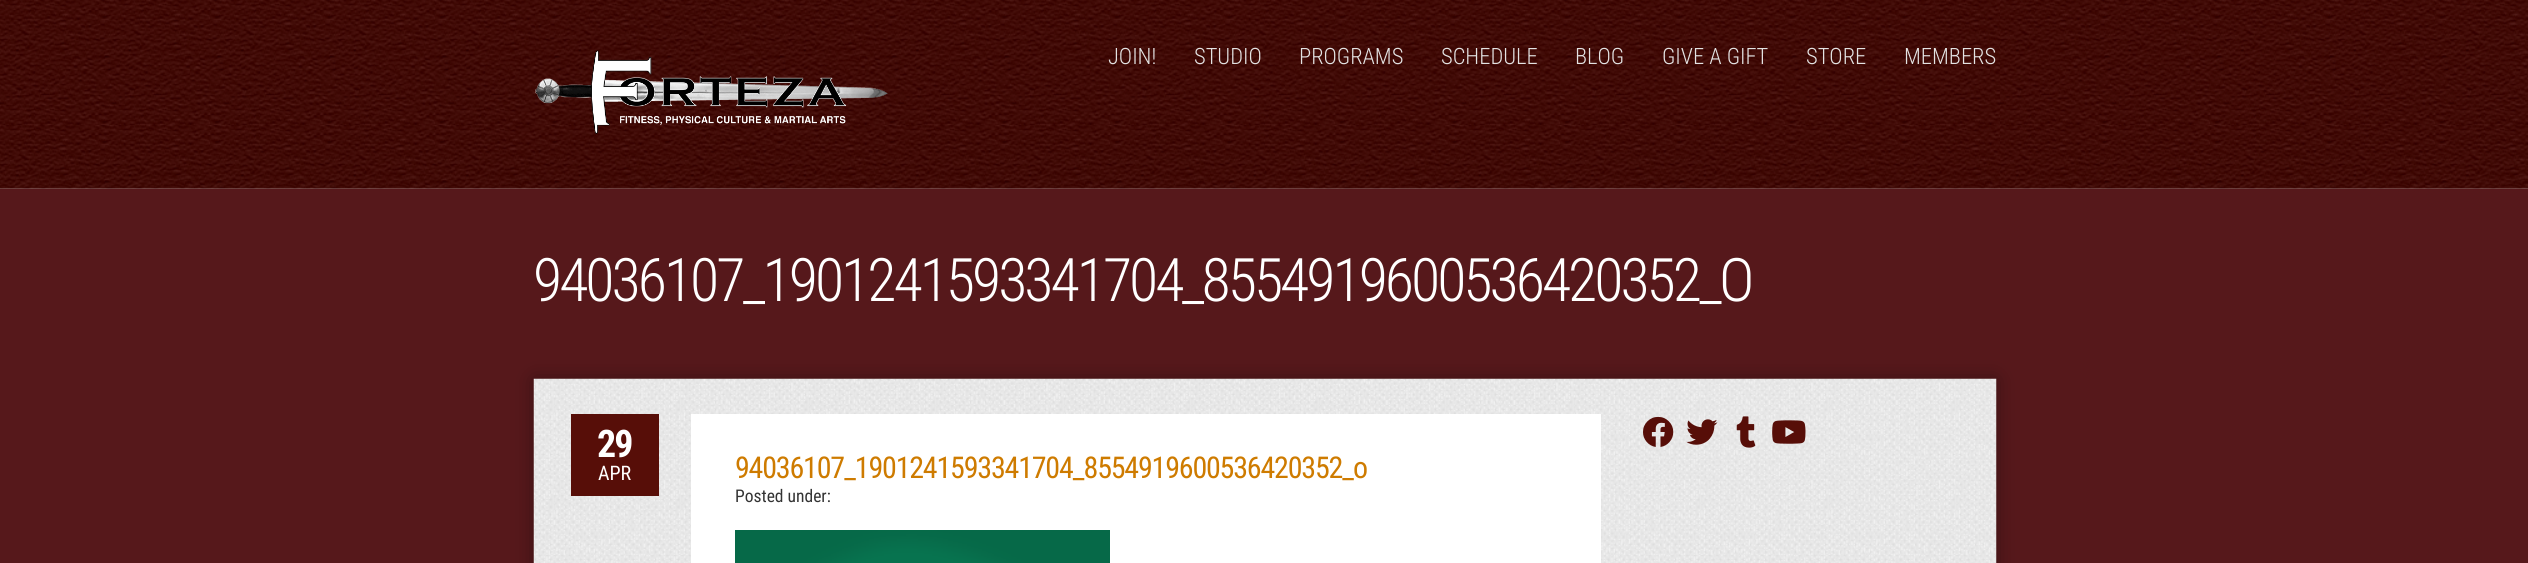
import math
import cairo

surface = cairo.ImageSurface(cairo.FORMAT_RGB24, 2528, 563)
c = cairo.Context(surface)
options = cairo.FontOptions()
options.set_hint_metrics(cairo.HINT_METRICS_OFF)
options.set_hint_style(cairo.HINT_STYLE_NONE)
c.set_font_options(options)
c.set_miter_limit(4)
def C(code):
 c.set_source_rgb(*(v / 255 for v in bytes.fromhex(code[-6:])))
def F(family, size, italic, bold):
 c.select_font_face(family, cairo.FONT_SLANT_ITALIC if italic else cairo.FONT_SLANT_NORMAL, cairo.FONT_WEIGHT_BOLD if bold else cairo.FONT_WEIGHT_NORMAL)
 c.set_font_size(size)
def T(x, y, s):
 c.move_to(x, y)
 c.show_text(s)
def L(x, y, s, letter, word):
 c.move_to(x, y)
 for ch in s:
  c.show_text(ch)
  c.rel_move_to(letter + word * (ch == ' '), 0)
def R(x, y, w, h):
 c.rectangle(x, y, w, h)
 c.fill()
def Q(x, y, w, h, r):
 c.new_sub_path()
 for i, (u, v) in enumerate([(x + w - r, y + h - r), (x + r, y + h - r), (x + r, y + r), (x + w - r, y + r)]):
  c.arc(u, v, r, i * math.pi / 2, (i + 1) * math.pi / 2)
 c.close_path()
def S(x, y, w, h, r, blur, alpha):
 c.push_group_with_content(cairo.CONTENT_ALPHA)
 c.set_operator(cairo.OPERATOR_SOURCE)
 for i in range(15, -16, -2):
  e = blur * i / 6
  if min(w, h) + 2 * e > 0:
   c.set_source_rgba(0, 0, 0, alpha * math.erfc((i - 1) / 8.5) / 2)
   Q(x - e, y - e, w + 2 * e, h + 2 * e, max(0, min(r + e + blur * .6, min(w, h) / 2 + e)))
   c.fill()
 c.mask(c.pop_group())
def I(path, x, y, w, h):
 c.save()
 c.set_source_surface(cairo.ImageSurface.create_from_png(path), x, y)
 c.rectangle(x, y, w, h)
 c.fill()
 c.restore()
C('56181b')
c.paint()
I('1.png',0,0,2528,189)
c.set_source_rgba(1,1,1,0.2)
R(0,188,2528,1)
I('2.png',535,50,353,84)
F('Roboto Condensed Light',22.5,0,0)
C('e3e3e3')
T(1108,64,'JOIN!')
T(1194,64,'STUDIO')
T(1299,64,'PROGRAMS')
T(1441,64,'SCHEDULE')
T(1575,64,'BLOG')
T(1662,64,'GIVE A GIFT')
T(1806,64,'STORE')
T(1904,64,'MEMBERS')
F('Roboto Condensed Light',60,0,0)
C('ffffff')
L(533,301,'94036107_1901241593341704_8554919600536420352_O',-3,0)
C('000000')
S(534,379,1462,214,0,10,.34)
I('3.png',533,378,1464,185)
C('570e08')
R(571,414,88,82)
F('Roboto Condensed',38,0,1)
C('ffffff')
L(597,457,'29',-2,0)
F('Roboto Condensed',20,0,0)
T(598,480,'APR')
R(691,414,910,149)
F('Roboto Condensed',30,0,0)
C('ce7b00')
L(735,478,'94036107_1901241593341704_8554919600536420352_o',-1.2,0)
F('Roboto Condensed',17.5,0,0)
C('333333')
T(735,502,'Posted under:')
I('4.png',735,530,375,33)
I('5.png',1643,416,31,31)
I('6.png',1686,419,32,26)
I('7.png',1736,416,20,32)
I('8.png',1772,420,34,24)
surface.write_to_png('o.png')
